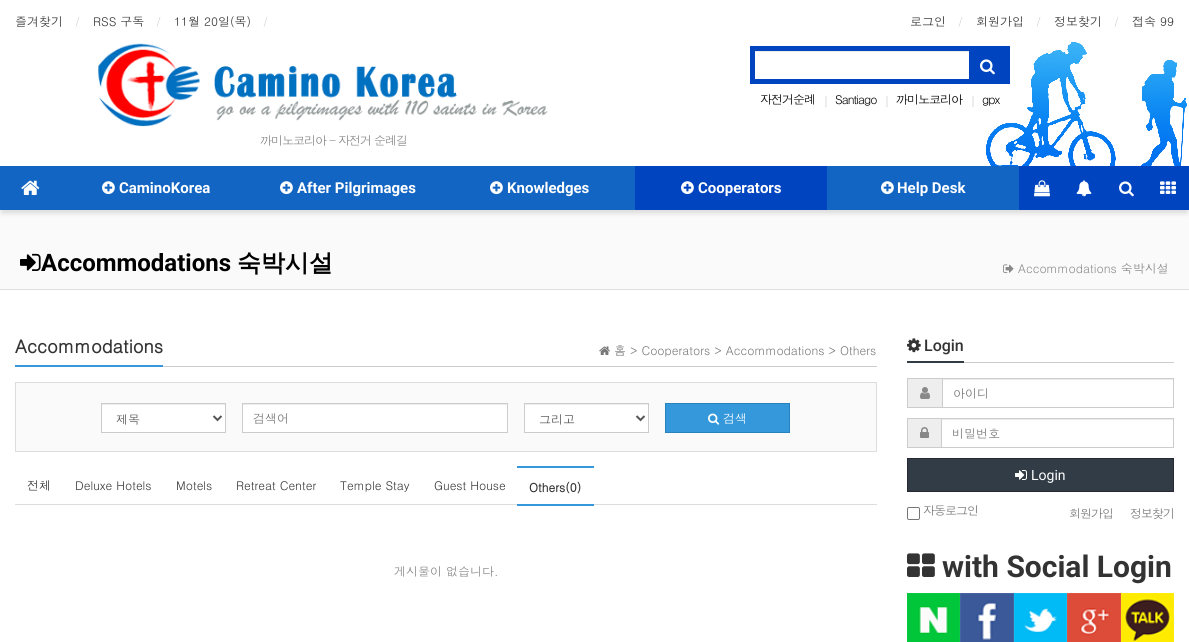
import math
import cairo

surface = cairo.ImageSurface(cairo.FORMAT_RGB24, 1189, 642)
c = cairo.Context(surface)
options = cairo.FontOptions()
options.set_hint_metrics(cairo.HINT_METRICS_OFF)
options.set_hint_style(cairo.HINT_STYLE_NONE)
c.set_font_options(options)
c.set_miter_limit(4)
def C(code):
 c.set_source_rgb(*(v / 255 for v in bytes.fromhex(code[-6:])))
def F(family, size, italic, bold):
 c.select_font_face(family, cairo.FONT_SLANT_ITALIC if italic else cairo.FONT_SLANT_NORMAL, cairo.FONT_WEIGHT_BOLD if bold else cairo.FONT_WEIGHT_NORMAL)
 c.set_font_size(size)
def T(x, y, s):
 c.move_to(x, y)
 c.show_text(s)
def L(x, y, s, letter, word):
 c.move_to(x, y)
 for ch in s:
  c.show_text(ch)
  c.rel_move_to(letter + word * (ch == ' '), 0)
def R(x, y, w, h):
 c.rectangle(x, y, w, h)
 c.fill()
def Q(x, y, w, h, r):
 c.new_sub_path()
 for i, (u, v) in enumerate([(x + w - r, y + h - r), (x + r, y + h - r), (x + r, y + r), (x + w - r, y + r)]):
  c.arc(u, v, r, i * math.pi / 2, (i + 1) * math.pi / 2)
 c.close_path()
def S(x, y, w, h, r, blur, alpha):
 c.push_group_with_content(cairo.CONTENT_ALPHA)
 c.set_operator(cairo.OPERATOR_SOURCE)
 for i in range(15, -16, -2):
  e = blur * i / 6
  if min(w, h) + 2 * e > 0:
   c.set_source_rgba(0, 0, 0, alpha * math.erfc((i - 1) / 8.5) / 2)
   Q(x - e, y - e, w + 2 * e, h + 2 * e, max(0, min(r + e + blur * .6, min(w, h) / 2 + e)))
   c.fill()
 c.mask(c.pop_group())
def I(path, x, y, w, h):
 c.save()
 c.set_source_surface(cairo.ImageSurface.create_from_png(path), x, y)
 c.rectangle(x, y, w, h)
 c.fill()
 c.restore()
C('ffffff')
c.paint()
F('Dotum',12,0,0)
C('333333')
T(15,26,'즐겨찾기')
C('cccccc')
T(75,26,'/')
C('333333')
T(93,26,'RSS 구독')
C('cccccc')
T(156,26,'/')
C('333333')
T(174,26,'11월 20일(목)')
C('cccccc')
T(263,26,'/')
C('333333')
T(910,26,'로그인')
C('cccccc')
T(958,26,'/')
C('333333')
T(976,26,'회원가입')
C('cccccc')
T(1036,26,'/')
C('333333')
T(1054,26,'정보찾기')
C('cccccc')
T(1114,26,'/')
C('333333')
T(1132,26,'접속 99')
I('1.png',985,42,202,124)
C('0044c0')
R(750,46,260,38)
C('ffffff')
R(755,52,214,27)
C('ececec')
R(755,51,214,1)
I('2.png',980,59,15,16)
C('000000')
L(760,104,'자전거순례',-1,0)
C('cccccc')
L(823,106,'|',-1,0)
C('000000')
L(835,104,'Santiago',-1,0)
C('cccccc')
L(884,106,'|',-1,0)
C('000000')
L(896,104,'까미노코리아',-1,0)
C('cccccc')
L(970,106,'|',-1,0)
C('000000')
L(982,104,'gpx',-1,0)
I('3.png',98,43,450,84)
C('888888')
L(260,145,'까미노코리아 - 자전거 순례길',-1,0)
C('fafafa')
R(0,210,1189,79)
C('191919')
S(2,173,1185,40,0,2.5,.15)
C('1265c2')
R(0,166,1019,44)
I('4.png',21,180,19,15)
I('5.png',102,181,13,14)
F('Roboto',15,0,1)
C('ffffff')
T(119,193,'CaminoKorea')
I('5.png',280,181,13,14)
T(297,193,'After Pilgrimages')
I('5.png',490,181,13,14)
T(507,193,'Knowledges')
C('0044c0')
R(635,166,192,44)
I('6.png',681,181,13,14)
C('ffffff')
T(698,193,'Cooperators')
I('5.png',881,181,13,14)
T(897,193,'Help Desk')
C('0044c0')
R(1019,166,170,44)
I('7.png',1034,180,16,17)
I('8.png',1076,180,16,17)
I('2.png',1119,181,15,16)
I('9.png',1160,181,16,13)
C('dfdfdf')
R(0,289,1189,1)
I('10.png',20,253,21,18)
F('Roboto',24,0,1)
C('000000')
T(41,271,'Accommodations')
F('WenQuanYi Zen Hei',24,0,1)
T(237,271,'숙박시설')
I('11.png',1003,264,11,9)
F('Dotum',12,0,0)
C('888888')
T(1018,273,'Accommodations 숙박시설')
C('cccccc')
R(163,366,714,1)
C('3498db')
R(15,365,148,2)
F('Dotum',18,0,1)
C('333333')
T(15,353,'Accommodations')
I('12.png',599,346,11,9)
F('Dotum',12,0,0)
C('777777')
T(614,355,'홈 > Cooperators > Accommodations > Others')
C('fafafa')
c.rectangle(15.5,382.5,861,69)
c.fill_preserve()
C('dddddd')
c.set_line_width(1)
c.stroke()
C('ffffff')
R(102,405,123,27)
C('ececec')
R(102,404,123,1)
c.rectangle(101.5,403.5,124,29)
C('cccccc')
c.stroke()
c.new_path()
c.move_to(213.5,416)
c.line_to(217.5,420)
c.line_to(221.5,416)
C('555555')
c.set_line_width(2)
c.stroke()
T(116,424,'제목')
C('ffffff')
R(243,405,264,27)
C('ececec')
R(243,404,264,1)
c.rectangle(242.5,403.5,265,29)
C('cccccc')
c.set_line_width(1)
c.stroke()
C('777777')
T(253,423,'검색어')
C('ffffff')
R(525,405,123,27)
C('ececec')
R(525,404,123,1)
c.rectangle(524.5,403.5,124,29)
C('cccccc')
c.stroke()
c.new_path()
c.move_to(636.5,416)
c.line_to(640.5,420)
c.line_to(644.5,416)
C('555555')
c.set_line_width(2)
c.stroke()
T(539,424,'그리고')
C('3498db')
c.rectangle(665.5,403.5,124,29)
c.fill_preserve()
C('2882be')
c.set_line_width(1)
c.stroke()
I('13.png',708,413,12,12)
C('ffffff')
T(723,423,'검색')
C('dddddd')
R(15,504,862,1)
C('333333')
T(27,490,'전체')
T(75,490,'Deluxe Hotels')
T(176,490,'Motels')
T(236,490,'Retreat Center')
T(340,490,'Temple Stay')
T(434,490,'Guest House')
C('3498db')
R(517,466,77,2)
R(517,504,77,2)
F('Dotum',12,0,1)
C('333333')
T(529,492,'Others(0)')
F('Dotum',12,0,0)
C('888888')
T(394,576,'게시물이 없습니다.')
C('cccccc')
R(964,362,210,1)
C('323c46')
R(907,361,57,2)
I('14.png',907,338,14,15)
F('Roboto Medium',16,0,0)
C('333333')
T(924,351,'Login')
C('eeeeee')
R(908,379,34,28)
C('cccccc')
R(907,378,35,1)
R(907,407,35,1)
R(907,378,1,30)
I('15.png',920,387,10,12)
C('ececec')
R(943,379,230,1)
c.rectangle(942.5,378.5,231,29)
C('cccccc')
c.stroke()
F('Dotum',12,0,0)
C('777777')
T(953,398,'아이디')
C('eeeeee')
R(908,419,33,28)
C('cccccc')
R(907,418,34,1)
R(907,447,34,1)
R(907,418,1,30)
I('16.png',920,427,9,11)
C('ececec')
R(942,419,231,1)
c.rectangle(941.5,418.5,232,29)
C('cccccc')
c.stroke()
C('777777')
T(952,438,'비밀번호')
C('323c46')
c.rectangle(907.5,458.5,266,33)
c.fill_preserve()
C('282832')
c.stroke()
I('17.png',1015,470,12,10)
F('Roboto',14,0,0)
C('ffffff')
T(1031,480,'Login')
Q(907.5,507.5,12,12,1.5)
C('767676')
c.stroke()
F('Dotum',12,0,0)
C('777777')
L(923,515,'자동로그인',-1,0)
L(1069,518,'회원가입',-1,0)
L(1130,518,'정보찾기',-1,0)
I('18.png',907,553,28,24)
F('Roboto',30,0,1)
C('333333')
T(942,577,'with Social Login')
I('19.png',907,593,53,49)
I('20.png',960,593,54,49)
I('21.png',1014,593,53,49)
I('22.png',1067,593,54,49)
I('23.png',1121,593,53,49)
surface.write_to_png('o.png')
